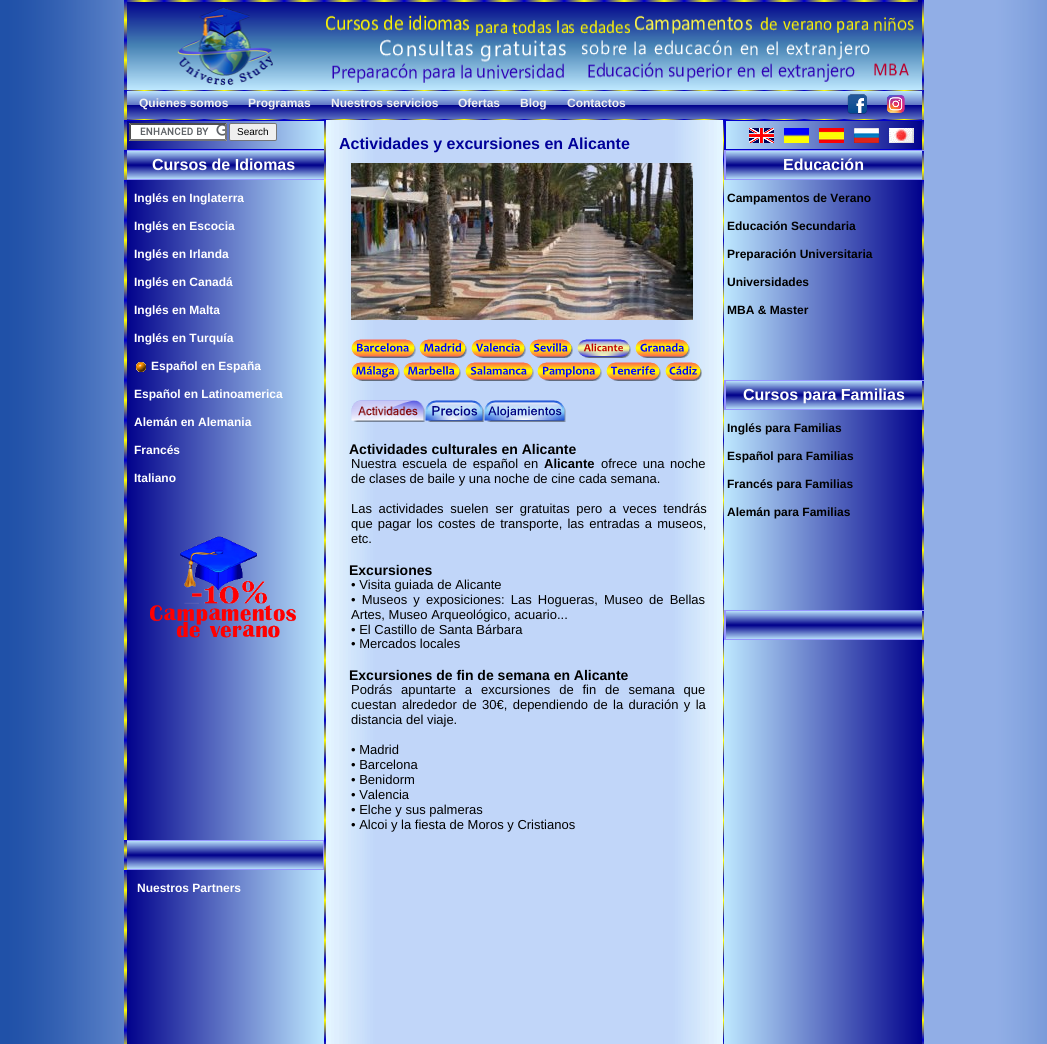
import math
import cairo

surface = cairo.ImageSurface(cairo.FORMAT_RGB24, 1047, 1044)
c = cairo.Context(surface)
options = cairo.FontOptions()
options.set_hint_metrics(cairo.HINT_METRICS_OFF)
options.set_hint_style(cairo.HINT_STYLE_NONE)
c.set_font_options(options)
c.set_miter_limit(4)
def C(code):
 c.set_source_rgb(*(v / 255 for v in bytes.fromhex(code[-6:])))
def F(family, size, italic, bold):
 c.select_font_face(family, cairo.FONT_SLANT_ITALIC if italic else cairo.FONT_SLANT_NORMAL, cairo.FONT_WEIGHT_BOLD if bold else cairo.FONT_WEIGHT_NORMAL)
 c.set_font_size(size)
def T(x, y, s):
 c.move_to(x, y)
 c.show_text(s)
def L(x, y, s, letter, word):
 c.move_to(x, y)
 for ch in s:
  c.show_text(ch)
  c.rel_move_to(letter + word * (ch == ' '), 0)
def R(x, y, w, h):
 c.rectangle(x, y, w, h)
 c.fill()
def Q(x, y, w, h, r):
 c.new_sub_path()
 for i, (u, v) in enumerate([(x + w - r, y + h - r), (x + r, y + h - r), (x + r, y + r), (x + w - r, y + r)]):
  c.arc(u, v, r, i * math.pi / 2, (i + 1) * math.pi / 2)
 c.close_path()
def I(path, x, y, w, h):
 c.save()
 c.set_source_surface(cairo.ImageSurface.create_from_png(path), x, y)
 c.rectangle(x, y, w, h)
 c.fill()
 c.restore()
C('ffffff')
c.paint()
I('1.png',0,0,1047,1044)
I('2.png',127,2,197,88)
I('3.png',127,0,197,2)
I('4.png',124,0,3,90)
I('5.png',177,7,96,78)
C('00008b')
R(918,0,4,2)
I('6.png',324,2,598,88)
I('7.png',922,0,2,90)
I('8.png',324,0,594,2)
I('9.png',326,14,588,69)
I('10.png',127,91,795,28)
I('11.png',127,119,795,1)
I('12.png',922,90,2,30)
I('13.png',127,90,796,1)
I('14.png',124,90,3,30)
F('Liberation Sans',12,0,1)
C('f0f0f0')
T(139,107,'Quienes somos')
T(248,107,'Programas')
T(331,107,'Nuestros servicios')
T(458,107,'Ofertas')
T(520,107,'Blog')
T(567,107,'Contactos')
I('15.png',847,94,20,20)
I('16.png',887,95,18,18)
I('17.png',127,121,197,28)
C('0000cd')
R(124,149,200,1)
R(124,120,200,1)
I('18.png',124,121,3,29)
C('ffffff')
R(129,123,98,18)
I('19.png',140,124,86,12)
C('4f4f4f')
c.new_path()
c.move_to(129,123)
c.line_to(227,123)
c.line_to(225,125)
c.line_to(131,125)
c.close_path()
c.fill()
C('767676')
c.new_path()
c.move_to(227,123)
c.line_to(227,141)
c.line_to(225,139)
c.line_to(225,125)
c.close_path()
c.fill()
c.new_path()
c.move_to(227,141)
c.line_to(129,141)
c.line_to(131,139)
c.line_to(225,139)
c.close_path()
c.fill()
C('4f4f4f')
c.new_path()
c.move_to(129,141)
c.line_to(129,123)
c.line_to(131,125)
c.line_to(131,139)
c.close_path()
c.fill()
C('efefef')
Q(229.5,123.5,47,17,1.5)
c.fill_preserve()
C('767676')
c.set_line_width(1)
c.stroke()
F('Liberation Sans',10,0,0)
C('000000')
T(237,135,'Search')
I('20.png',127,151,197,28)
C('9696ff')
R(124,179,200,1)
R(124,150,200,1)
I('14.png',124,150,3,30)
F('Liberation Sans',16,0,1)
C('ffffff')
T(152,170,'Cursos de Idiomas')
I('21.png',127,180,197,660)
I('22.png',124,180,3,660)
F('Liberation Sans',12,0,1)
T(134,202,'Inglés en Inglaterra')
T(134,230,'Inglés en Escocia')
T(134,258,'Inglés en Irlanda')
T(134,286,'Inglés en Canadá')
T(134,314,'Inglés en Malta')
T(134,342,'Inglés en Turquía')
I('23.png',136,362,10,10)
T(151,370,'Español en España')
T(134,398,'Español en Latinoamerica')
T(134,426,'Alemán en Alemania')
T(134,454,'Francés')
T(134,482,'Italiano')
I('24.png',150,536,146,102)
I('25.png',127,841,196,28)
C('9696ff')
R(124,869,200,1)
R(323,840,1,29)
R(124,840,199,1)
I('26.png',124,840,3,30)
I('27.png',127,870,197,174)
I('28.png',124,870,3,174)
C('ffffff')
T(137,892,'Nuestros Partners')
I('29.png',326,120,397,924)
I('30.png',723,120,1,924)
I('31.png',324,120,2,924)
F('Liberation Sans',16,0,1)
C('000099')
T(339,149,'Actividades y excursiones en Alicante')
I('32.png',351,163,342,157)
I('33.png',351,339,65,19)
I('34.png',419,339,48,19)
I('35.png',471,339,55,19)
I('36.png',529,339,44,19)
I('37.png',577,339,54,19)
I('38.png',635,339,55,19)
I('39.png',351,362,49,19)
I('40.png',403,362,58,19)
I('41.png',465,362,69,19)
I('42.png',537,362,65,19)
I('43.png',606,362,55,19)
I('44.png',665,362,37,19)
I('45.png',351,400,74,22)
I('46.png',425,400,59,22)
I('47.png',484,400,82,22)
F('Liberation Sans',14,0,1)
C('000000')
T(349,454,'Actividades culturales en Alicante')
F('Liberation Sans',13,0,0)
L(351,468,'Nuestra escuela de español en',0,2)
F('Liberation Sans',13,0,1)
T(544,468,'Alicante')
F('Liberation Sans',13,0,0)
L(601,468,'ofrece una noche',0,2)
T(351,483,'de clases de baile y una noche de cine cada semana.')
L(351,513,'Las actividades suelen ser gratuitas pero a veces tendrás',0,3)
L(351,528,'que pagar los costes de transporte, las entradas a museos,',0,1.5)
T(351,543,'etc.')
F('Liberation Sans',14,0,1)
T(349,575,'Excursiones')
F('Liberation Sans',13,0,0)
T(351,589,'• Visita guiada de Alicante')
L(351,604,'• Museos y exposiciones: Las Hogueras, Museo de Bellas',0,2.5)
T(351,619,'Artes, Museo Arqueológico, acuario...')
T(351,634,'• El Castillo de Santa Bárbara')
T(351,648,'• Mercados locales')
F('Liberation Sans',14,0,1)
T(349,680,'Excursiones de fin de semana en Alicante')
F('Liberation Sans',13,0,0)
L(351,694,'Podrás apuntarte a excursiones de fin de semana que',0,5.25)
L(351,709,'cuestan alrededor de 30€, dependiendo de la duración y la',0,1.75)
T(351,724,'distancia del viaje.')
T(351,754,'• Madrid')
T(351,769,'• Barcelona')
T(351,784,'• Benidorm')
T(351,799,'• Valencia')
T(351,814,'• Elche y sus palmeras')
T(351,829,'• Alcoi y la fiesta de Moros y Cristianos')
I('48.png',726,121,196,28)
C('0000cd')
R(724,149,200,1)
I('12.png',922,120,2,30)
R(724,120,198,1)
R(724,121,2,28)
I('49.png',749,128,25,15)
I('50.png',784,128,25,15)
I('51.png',819,128,25,15)
I('52.png',854,128,25,15)
I('53.png',889,128,25,15)
I('25.png',726,151,196,28)
C('9696ff')
R(724,179,200,1)
I('54.png',922,151,2,29)
R(724,150,200,1)
R(724,151,2,28)
F('Liberation Sans',16,0,1)
C('ffffff')
T(783,170,'Educación')
I('55.png',724,180,198,200)
I('56.png',922,180,2,200)
F('Liberation Sans',12,0,1)
C('000000')
T(727,202,'Campamentos de Verano')
T(727,230,'Educación Secundaria')
T(727,258,'Preparación Universitaria')
T(727,286,'Universidades')
T(727,314,'MBA & Master')
I('25.png',726,381,196,28)
C('9696ff')
R(724,409,200,1)
I('54.png',922,381,2,29)
R(724,380,200,1)
R(724,381,2,28)
F('Liberation Sans',16,0,1)
C('ffffff')
T(743,400,'Cursos para Familias')
I('55.png',724,410,198,200)
I('56.png',922,410,2,200)
F('Liberation Sans',12,0,1)
C('000000')
T(727,432,'Inglés para Familias')
T(727,460,'Español para Familias')
T(727,488,'Francés para Familias')
T(727,516,'Alemán para Familias')
I('25.png',726,611,196,28)
C('9696ff')
R(724,639,200,1)
I('54.png',922,611,2,29)
R(724,610,200,1)
R(724,611,2,28)
I('57.png',724,640,198,404)
I('58.png',922,640,2,404)
surface.write_to_png('o.png')
